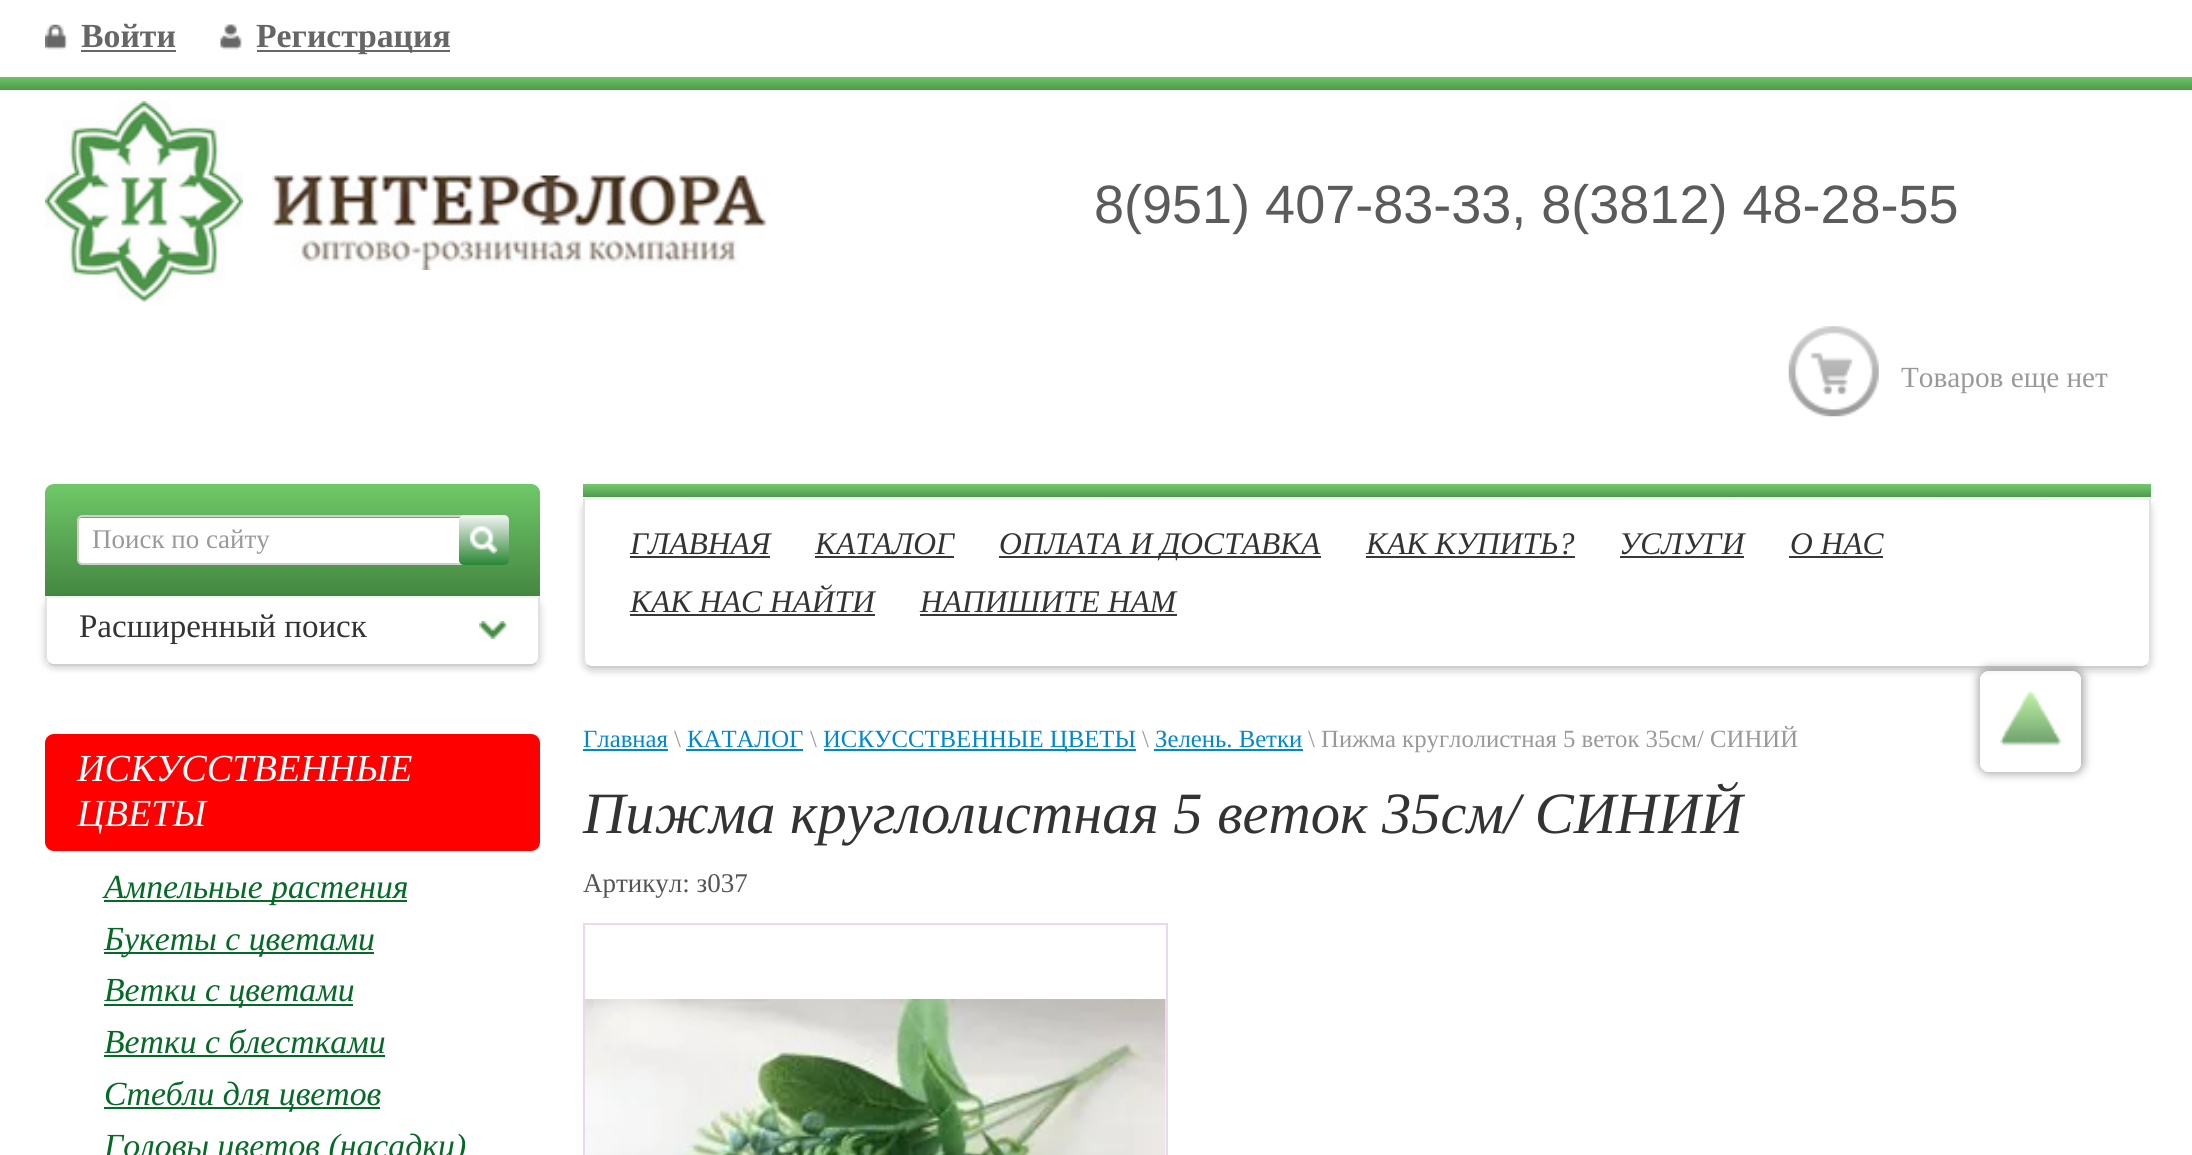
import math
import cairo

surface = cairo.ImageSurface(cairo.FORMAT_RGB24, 2192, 1155)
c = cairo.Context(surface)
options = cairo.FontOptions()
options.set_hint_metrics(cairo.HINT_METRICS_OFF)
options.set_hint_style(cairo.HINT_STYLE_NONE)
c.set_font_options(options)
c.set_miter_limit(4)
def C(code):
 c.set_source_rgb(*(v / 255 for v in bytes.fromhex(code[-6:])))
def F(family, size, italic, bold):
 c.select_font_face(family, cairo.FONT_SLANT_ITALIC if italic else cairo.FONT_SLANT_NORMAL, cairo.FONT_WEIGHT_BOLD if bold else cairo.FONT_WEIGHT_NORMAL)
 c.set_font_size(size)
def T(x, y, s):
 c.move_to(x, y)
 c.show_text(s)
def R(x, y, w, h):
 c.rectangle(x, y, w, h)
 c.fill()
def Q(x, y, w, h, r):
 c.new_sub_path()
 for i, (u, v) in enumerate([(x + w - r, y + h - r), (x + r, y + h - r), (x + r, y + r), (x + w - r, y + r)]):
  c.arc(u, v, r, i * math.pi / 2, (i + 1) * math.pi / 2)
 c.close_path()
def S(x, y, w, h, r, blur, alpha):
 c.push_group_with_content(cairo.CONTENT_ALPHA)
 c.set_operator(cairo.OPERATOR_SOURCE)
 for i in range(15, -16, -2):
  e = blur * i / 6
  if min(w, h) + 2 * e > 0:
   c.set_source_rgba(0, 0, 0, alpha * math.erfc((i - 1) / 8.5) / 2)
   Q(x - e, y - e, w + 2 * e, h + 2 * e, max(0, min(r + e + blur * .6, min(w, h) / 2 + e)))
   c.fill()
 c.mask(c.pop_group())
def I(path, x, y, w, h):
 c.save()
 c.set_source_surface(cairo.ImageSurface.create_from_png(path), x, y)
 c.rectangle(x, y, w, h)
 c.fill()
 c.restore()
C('ffffff')
c.paint()
I('1.png',45,24,23,26)
F('Liberation Serif',33.75,0,1)
C('666666')
T(81,47,'Войти')
R(81,50,95,2)
I('2.png',220,24,22,26)
R(257,50,193,2)
T(256,47,'Регистрация')
gradient = cairo.LinearGradient(1097,76,1097,90)
gradient.add_color_stop_rgba(0,0.435,0.784,0.408,1)
gradient.add_color_stop_rgba(1,0.31,0.596,0.286,1)
c.set_source(gradient)
R(0,77,2192,13)
I('3.png',45,101,198,201)
I('4.png',272,175,495,95)
F('Liberation Sans',54,0,0)
C('5b5b5b')
T(1094,223,'8(951) 407-83-33, 8(3812) 48-28-55')
I('5.png',1788,326,91,91)
F('Liberation Serif',29.25,0,0)
C('999999')
T(1901,387,'Товаров еще нет')
gradient = cairo.LinearGradient(293,484,293,596)
gradient.add_color_stop_rgba(0,0.435,0.784,0.408,1)
gradient.add_color_stop_rgba(1,0.271,0.529,0.255,1)
c.set_source(gradient)
c.new_path()
c.move_to(54,484)
c.line_to(531,484)
c.curve_to(536,484,540,488,540,493)
c.line_to(540,596)
c.line_to(45,596)
c.line_to(45,493)
c.curve_to(45,488,49,484,54,484)
c.close_path()
c.fill()
C('ffffff')
c.new_path()
c.move_to(81,518)
c.line_to(461,518)
c.line_to(461,563)
c.line_to(81,563)
c.curve_to(80,563,79,562,79,561)
c.line_to(79,520)
c.curve_to(79,519,80,518,81,518)
c.close_path()
c.fill()
c.new_path()
c.move_to(82,516)
c.line_to(463,516)
c.line_to(463,564)
c.line_to(82,564)
c.curve_to(80,564,78,562,78,560)
c.line_to(78,520)
c.curve_to(78,518,80,516,82,516)
c.close_path()
C('cfcfcf')
c.stroke()
F('Liberation Serif',27,0,0)
C('999999')
T(92,548,'Поиск по сайту')
gradient = cairo.LinearGradient(484,515,484,565)
gradient.add_color_stop_rgba(0,0.957,0.957,0.957,1)
gradient.add_color_stop_rgba(1,0.161,0.529,0.204,1)
c.set_source(gradient)
Q(459,515,50,50,5)
c.fill()
I('6.png',470,526,28,28)
c.save()
c.set_fill_rule(cairo.FILL_RULE_EVEN_ODD)
c.new_path()
c.move_to(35,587)
c.line_to(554,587)
c.line_to(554,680)
c.line_to(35,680)
c.close_path()
c.move_to(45,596)
c.line_to(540,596)
c.line_to(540,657)
c.curve_to(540,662,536,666,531,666)
c.line_to(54,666)
c.curve_to(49,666,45,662,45,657)
c.close_path()
c.clip()
C('000000')
S(47,599,495,69,9,3.5,.1)
c.restore()
c.save()
c.set_fill_rule(cairo.FILL_RULE_EVEN_ODD)
c.new_path()
c.move_to(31,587)
c.line_to(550,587)
c.line_to(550,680)
c.line_to(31,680)
c.close_path()
c.move_to(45,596)
c.line_to(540,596)
c.line_to(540,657)
c.curve_to(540,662,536,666,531,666)
c.line_to(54,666)
c.curve_to(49,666,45,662,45,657)
c.close_path()
c.clip()
C('000000')
S(43,599,495,69,9,3.5,.1)
c.restore()
C('f1f1f1')
c.new_path()
c.move_to(47,598)
c.line_to(538,598)
c.line_to(540,596)
c.line_to(45,596)
c.close_path()
c.fill()
C('e2e2e2')
c.new_path()
c.move_to(540,596)
c.line_to(538,598)
c.line_to(538,657)
c.curve_to(538,659,537,661,536,662)
c.line_to(537,663)
c.curve_to(539,662,540,660,540,657)
c.close_path()
c.fill()
C('cfcfcf')
c.new_path()
c.move_to(54,666)
c.line_to(531,666)
c.curve_to(534,666,536,665,537,663)
c.line_to(536,662)
c.curve_to(535,663,533,664,531,664)
c.line_to(54,664)
c.curve_to(52,664,50,663,49,662)
c.line_to(48,663)
c.curve_to(49,665,52,666,54,666)
c.close_path()
c.fill()
C('e2e2e2')
c.new_path()
c.move_to(45,596)
c.line_to(45,657)
c.curve_to(45,660,46,662,48,663)
c.line_to(49,662)
c.curve_to(48,661,47,659,47,657)
c.line_to(47,598)
c.close_path()
c.fill()
F('Liberation Serif',33,0,0)
C('333333')
T(79,637,'Расширенный поиск')
I('7.png',479,621,28,18)
C('ff0000')
Q(45,734,495,117,9)
c.fill()
F('Liberation Serif',38.25,1,0)
C('ffffff')
T(77,781,'ИСКУССТВЕННЫЕ')
T(77,826,'ЦВЕТЫ')
C('056a28')
R(104,900,303,2)
F('Liberation Serif',33.75,1,0)
T(104,898,'Ампельные растения')
R(104,952,270,2)
T(104,950,'Букеты с цветами')
R(104,1004,249,2)
T(104,1001,'Ветки с цветами')
T(104,1053,'Ветки с блестками')
R(104,1055,281,2)
R(104,1107,276,2)
T(104,1105,'Стебли для цветов')
T(104,1157,'Головы цветов (насадки)')
gradient = cairo.LinearGradient(1367,484,1367,497)
gradient.add_color_stop_rgba(0,0.447,0.792,0.424,1)
gradient.add_color_stop_rgba(1,0.318,0.608,0.302,1)
c.set_source(gradient)
R(583,484,1568,13)
c.save()
c.set_fill_rule(cairo.FILL_RULE_EVEN_ODD)
c.new_path()
c.move_to(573,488)
c.line_to(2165,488)
c.line_to(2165,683)
c.line_to(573,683)
c.close_path()
c.move_to(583,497)
c.line_to(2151,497)
c.line_to(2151,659)
c.curve_to(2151,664,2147,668,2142,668)
c.line_to(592,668)
c.curve_to(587,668,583,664,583,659)
c.close_path()
c.clip()
C('000000')
S(585,500,1568,171,9,3.5,.1)
c.restore()
c.save()
c.set_fill_rule(cairo.FILL_RULE_EVEN_ODD)
c.new_path()
c.move_to(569,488)
c.line_to(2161,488)
c.line_to(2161,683)
c.line_to(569,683)
c.close_path()
c.move_to(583,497)
c.line_to(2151,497)
c.line_to(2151,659)
c.curve_to(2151,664,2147,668,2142,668)
c.line_to(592,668)
c.curve_to(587,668,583,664,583,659)
c.close_path()
c.clip()
C('000000')
S(581,500,1568,171,9,3.5,.1)
c.restore()
C('f1f1f1')
c.new_path()
c.move_to(583,498)
c.line_to(2151,497)
c.line_to(2148,500)
c.line_to(586,500)
c.close_path()
c.fill()
C('e2e2e2')
c.new_path()
c.move_to(2151,497)
c.line_to(2148,500)
c.line_to(2149,500)
c.line_to(2149,659)
c.curve_to(2149,661,2148,663,2147,664)
c.line_to(2148,665)
c.curve_to(2150,664,2151,662,2151,659)
c.close_path()
c.fill()
C('cfcfcf')
c.new_path()
c.move_to(2148,665)
c.curve_to(2147,667,2144,668,2142,668)
c.line_to(592,668)
c.curve_to(590,668,587,667,586,665)
c.line_to(587,664)
c.curve_to(588,665,590,666,592,666)
c.line_to(2142,666)
c.curve_to(2144,666,2146,665,2147,664)
c.close_path()
c.fill()
C('e2e2e2')
c.new_path()
c.move_to(585,500)
c.line_to(585,659)
c.curve_to(585,661,586,663,587,664)
c.line_to(586,665)
c.curve_to(584,664,583,662,583,659)
c.line_to(583,498)
c.line_to(586,500)
c.close_path()
c.fill()
F('Liberation Serif',31.5,1,0)
C('333333')
T(630,554,'ГЛАВНАЯ')
C('383838')
R(630,556,140,2)
C('333333')
T(815,554,'КАТАЛОГ')
C('383838')
R(815,556,139,2)
R(999,556,322,2)
C('333333')
T(999,554,'ОПЛАТА И ДОСТАВКА')
T(1366,554,'КАК КУПИТЬ?')
C('383838')
R(1366,556,209,2)
C('333333')
T(1619,554,'УСЛУГИ')
C('383838')
R(1620,556,124,2)
C('333333')
T(1790,554,'О НАС')
C('383838')
R(1789,556,94,2)
C('333333')
T(630,612,'КАК НАС НАЙТИ')
C('383838')
R(630,614,245,2)
C('333333')
T(920,612,'НАПИШИТЕ НАМ')
C('383838')
R(920,614,257,2)
F('Liberation Serif',24.75,0,0)
C('0088cc')
T(583,747,'Главная')
R(583,749,85,2)
C('999999')
T(674,747,'\\')
C('0088cc')
T(687,747,'КАТАЛОГ')
R(686,749,117,2)
C('999999')
T(810,747,'\\')
C('0088cc')
R(824,749,312,2)
T(823,747,'ИСКУССТВЕННЫЕ ЦВЕТЫ')
C('999999')
T(1142,747,'\\')
C('0088cc')
T(1155,747,'Зелень. Ветки')
R(1154,749,149,2)
C('999999')
T(1308,747,'\\ Пижма круглолистная 5 веток 35см/ СИНИЙ')
F('Liberation Serif',58.5,1,0)
C('333333')
T(583,833,'Пижма круглолистная 5 веток 35см/ СИНИЙ')
F('Liberation Serif',27,0,0)
C('555555')
T(583,892,'Артикул: з037')
c.rectangle(584,924,583,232)
C('ebd8ec')
c.stroke()
I('8.png',585,999,581,156)
c.save()
c.set_fill_rule(cairo.FILL_RULE_EVEN_ODD)
c.new_path()
c.move_to(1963,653)
c.line_to(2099,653)
c.line_to(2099,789)
c.line_to(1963,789)
c.close_path()
c.move_to(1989,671)
c.line_to(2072,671)
c.curve_to(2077,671,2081,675,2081,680)
c.line_to(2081,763)
c.curve_to(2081,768,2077,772,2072,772)
c.line_to(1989,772)
c.curve_to(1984,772,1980,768,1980,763)
c.line_to(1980,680)
c.curve_to(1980,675,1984,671,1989,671)
c.close_path()
c.clip()
C('7b7b7b')
S(1978,668,106,106,11,4.5,.65)
c.restore()
c.set_source_rgba(1,1,1,0.65)
Q(1980,671,101,101,9)
c.fill()
I('9.png',2000,690,61,56)
surface.write_to_png('o.png')
